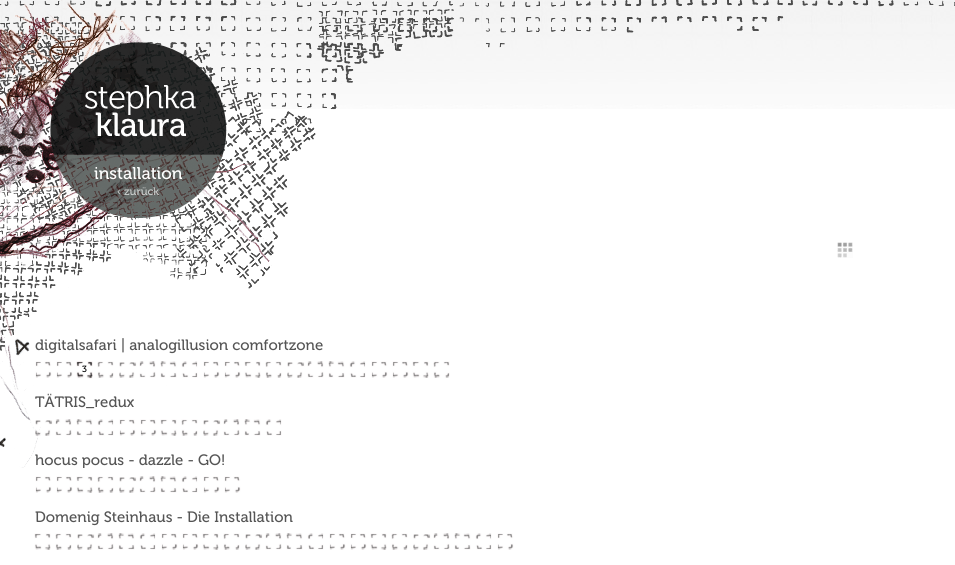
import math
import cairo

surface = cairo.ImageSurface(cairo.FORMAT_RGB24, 955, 565)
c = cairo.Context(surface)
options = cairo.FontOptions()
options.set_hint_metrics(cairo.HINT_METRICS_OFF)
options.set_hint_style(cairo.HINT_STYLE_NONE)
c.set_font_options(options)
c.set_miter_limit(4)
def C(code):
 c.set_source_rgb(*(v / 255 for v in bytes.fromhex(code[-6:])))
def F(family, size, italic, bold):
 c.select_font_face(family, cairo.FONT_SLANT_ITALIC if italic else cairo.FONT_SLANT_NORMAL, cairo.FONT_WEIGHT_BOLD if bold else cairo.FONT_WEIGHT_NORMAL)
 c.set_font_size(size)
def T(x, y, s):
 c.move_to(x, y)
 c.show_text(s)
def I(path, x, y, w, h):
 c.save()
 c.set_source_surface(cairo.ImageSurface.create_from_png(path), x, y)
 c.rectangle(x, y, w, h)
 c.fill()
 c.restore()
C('ffffff')
c.paint()
I('1.png',0,0,955,109)
I('2.png',0,0,955,351)
I('4.png',50,42,176,176)
I('3.png',0,0,270,468)
I('5.png',50,42,177,177)
F('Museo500',17,0,0)
C('ffffff')
T(94,179,'installation')
F('Museo500',11,0,0)
C('cacdcc')
T(117,195,'‹ zurück')
I('6.png',837,242,16,16)
F('Museo500',15,0,0)
C('555555')
T(35,350,'digitalsafari | analogillusion comfortzone')
I('7.png',35,361,17,17)
I('7.png',56,361,17,17)
I('8.png',76,361,17,18)
F('Museo500',9,0,0)
C('000000')
T(82,372,'3')
I('9.png',97,361,17,17)
I('10.png',119,362,18,16)
I('11.png',139,361,17,17)
I('12.png',160,361,17,17)
I('13.png',181,361,17,17)
I('7.png',203,361,17,17)
I('7.png',224,361,17,17)
I('14.png',244,361,17,17)
I('9.png',265,361,17,17)
I('10.png',287,362,18,16)
I('11.png',307,361,17,17)
I('12.png',328,361,17,17)
I('13.png',349,361,17,17)
I('7.png',371,361,17,17)
I('7.png',392,361,17,17)
I('14.png',412,361,17,17)
I('9.png',433,361,17,17)
F('Museo500',15,0,0)
C('555555')
T(35,407,'TÄTRIS_redux')
I('15.png',35,420,18,16)
I('11.png',55,419,17,17)
I('12.png',76,419,17,17)
I('13.png',97,419,17,17)
I('7.png',119,419,17,17)
I('7.png',140,419,17,17)
I('14.png',160,419,17,17)
I('9.png',181,419,17,17)
I('10.png',203,420,18,16)
I('11.png',223,419,17,17)
I('12.png',244,419,17,17)
I('13.png',265,419,17,17)
T(35,465,'hocus pocus - dazzle - GO!')
I('7.png',35,476,17,17)
I('7.png',56,476,17,17)
I('14.png',76,476,17,17)
I('9.png',97,476,17,17)
I('10.png',119,477,18,16)
I('11.png',139,476,17,17)
I('12.png',160,476,17,17)
I('13.png',181,476,17,17)
I('7.png',203,476,17,17)
I('7.png',224,476,17,17)
T(35,522,'Domenig Steinhaus - Die Installation')
I('14.png',34,533,17,17)
I('9.png',55,533,17,17)
I('10.png',77,534,18,16)
I('11.png',97,533,17,17)
I('12.png',118,533,17,17)
I('13.png',139,533,17,17)
I('7.png',161,533,17,17)
I('7.png',182,533,17,17)
I('14.png',202,533,17,17)
I('9.png',223,533,17,17)
I('10.png',245,534,18,16)
I('11.png',265,533,17,17)
I('12.png',286,533,17,17)
I('13.png',307,533,17,17)
I('7.png',329,533,17,17)
I('7.png',350,533,17,17)
I('14.png',370,533,17,17)
I('9.png',391,533,17,17)
I('10.png',413,534,18,16)
I('11.png',433,533,17,17)
I('12.png',454,533,17,17)
I('13.png',475,533,17,17)
I('7.png',497,533,17,17)
surface.write_to_png('o.png')
